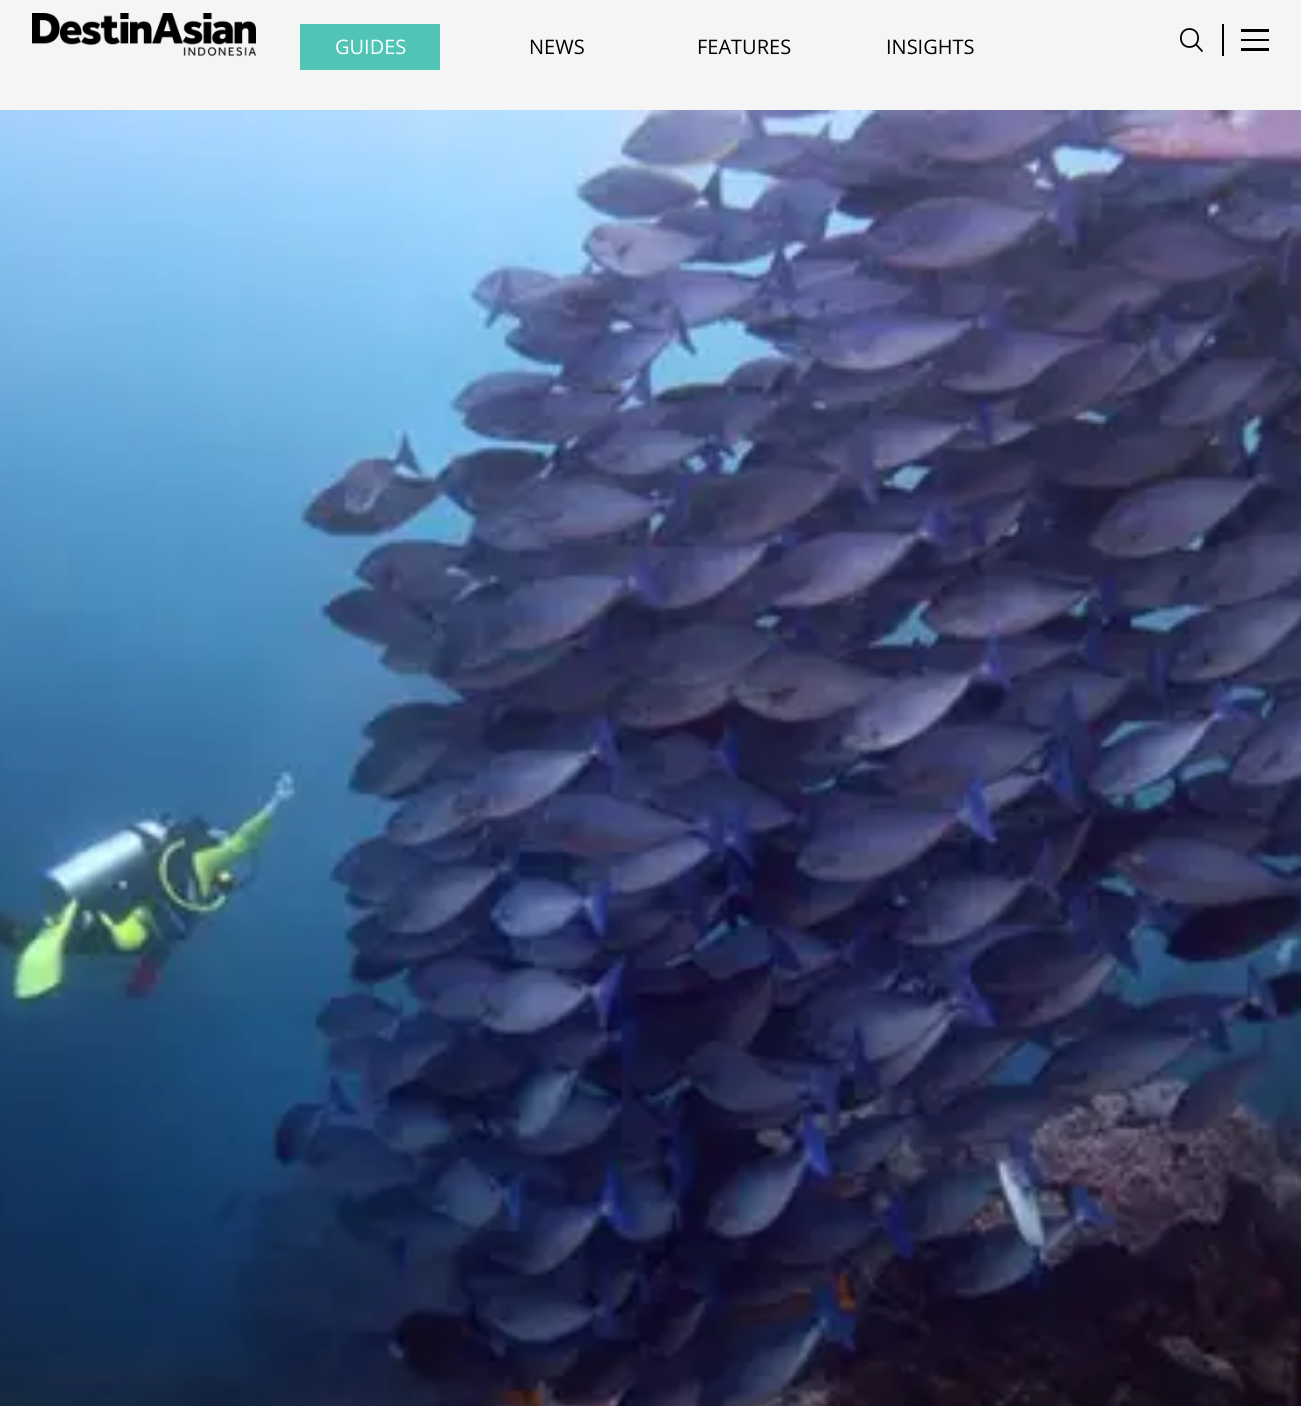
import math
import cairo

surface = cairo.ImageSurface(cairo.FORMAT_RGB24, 1301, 1406)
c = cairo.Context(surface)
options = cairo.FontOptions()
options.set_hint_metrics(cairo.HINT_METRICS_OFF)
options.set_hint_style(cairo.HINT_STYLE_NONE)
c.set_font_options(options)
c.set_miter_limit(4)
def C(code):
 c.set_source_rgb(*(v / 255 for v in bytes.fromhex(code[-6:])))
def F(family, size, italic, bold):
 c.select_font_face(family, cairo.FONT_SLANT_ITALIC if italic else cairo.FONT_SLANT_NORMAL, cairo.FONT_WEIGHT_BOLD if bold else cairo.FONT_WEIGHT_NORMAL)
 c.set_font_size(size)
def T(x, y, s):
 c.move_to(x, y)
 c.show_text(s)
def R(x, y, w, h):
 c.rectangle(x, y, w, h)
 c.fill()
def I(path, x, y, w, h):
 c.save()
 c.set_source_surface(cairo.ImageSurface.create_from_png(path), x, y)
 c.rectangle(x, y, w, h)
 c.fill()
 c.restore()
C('f5f5f5')
c.paint()
I('1.png',32,13,224,44)
c.new_path()
c.move_to(1189.5,29)
c.curve_to(1178,29,1178,47,1189.5,47)
c.curve_to(1201,47,1201,29,1189.5,29)
c.close_path()
C('000000')
c.set_line_width(1.8)
c.stroke()
c.new_path()
c.move_to(1196,44.5)
c.line_to(1202,51)
c.set_line_cap(cairo.LINE_CAP_ROUND)
c.stroke()
R(1222,24,2,32)
R(1241,29,28,3)
R(1241,39,28,2)
R(1241,48,28,3)
C('50c5b6')
R(300,24,140,46)
F('Open Sans',20,0,0)
C('ffffff')
T(335,54,'GUIDES')
C('000000')
T(529,54,'NEWS')
T(697,54,'FEATURES')
T(886,54,'INSIGHTS')
I('2.png',0,110,1301,1296)
surface.write_to_png('o.png')
